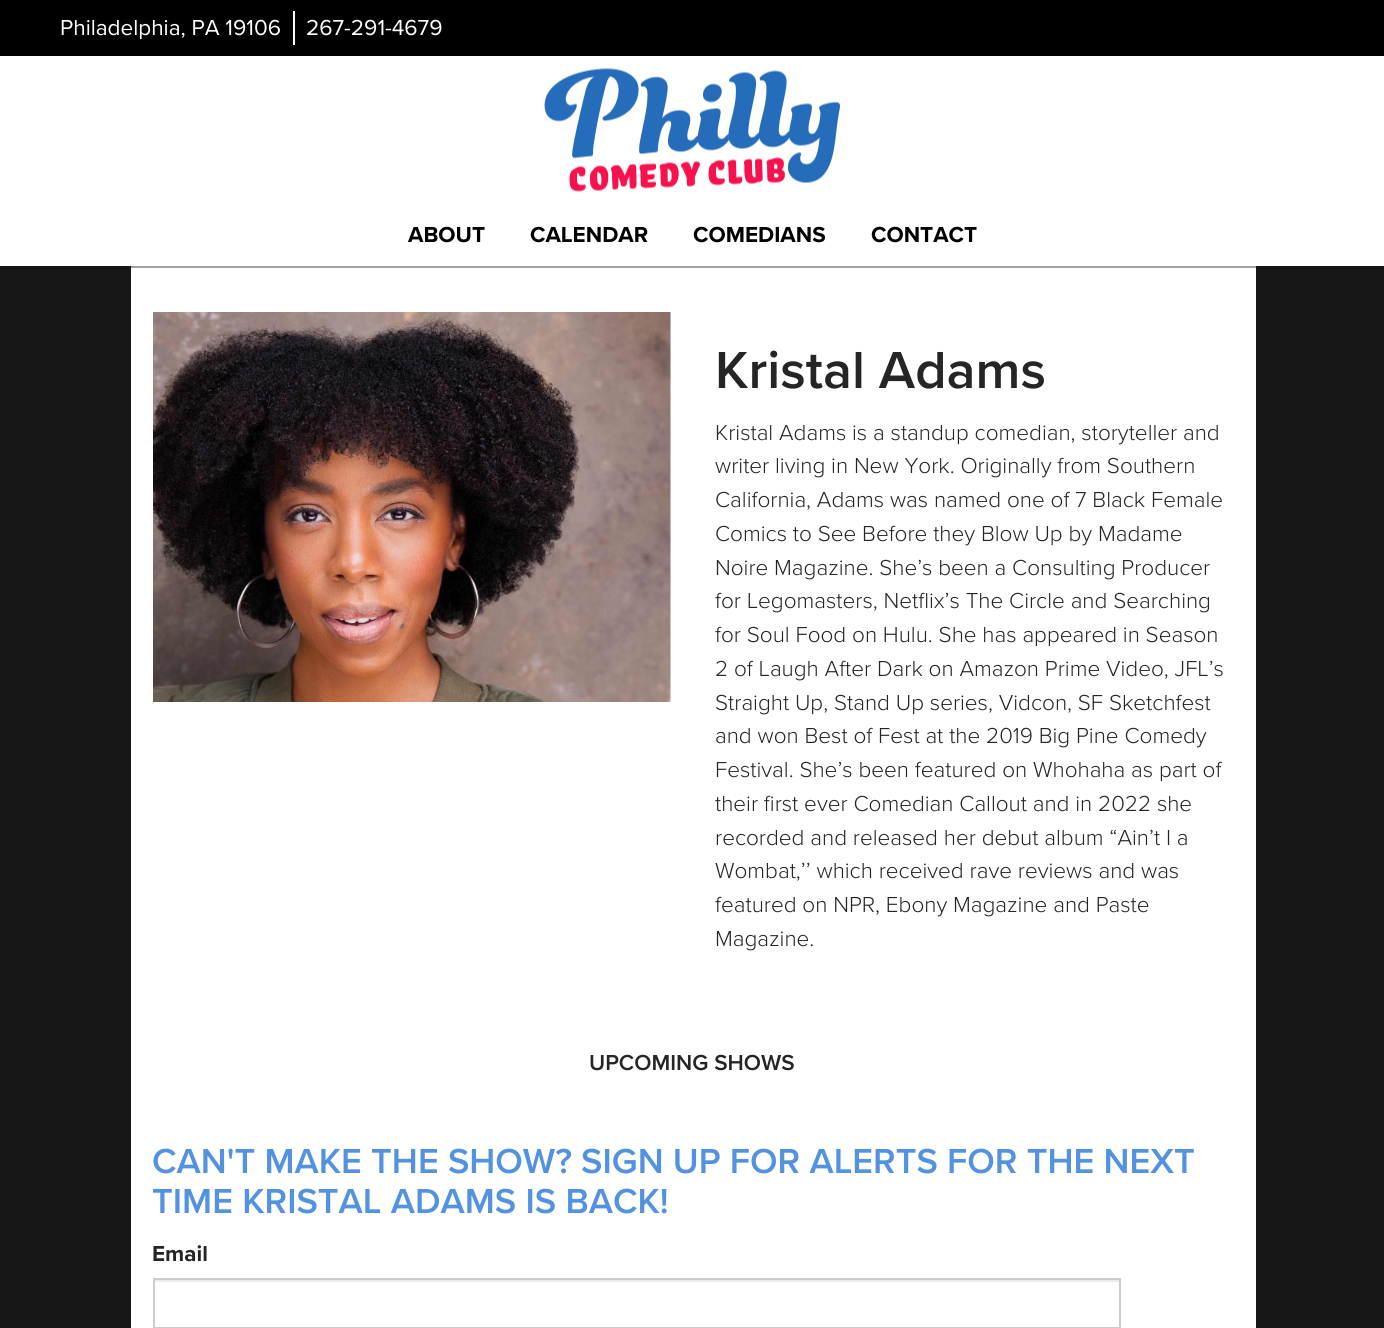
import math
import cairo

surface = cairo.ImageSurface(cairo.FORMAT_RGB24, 1384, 1328)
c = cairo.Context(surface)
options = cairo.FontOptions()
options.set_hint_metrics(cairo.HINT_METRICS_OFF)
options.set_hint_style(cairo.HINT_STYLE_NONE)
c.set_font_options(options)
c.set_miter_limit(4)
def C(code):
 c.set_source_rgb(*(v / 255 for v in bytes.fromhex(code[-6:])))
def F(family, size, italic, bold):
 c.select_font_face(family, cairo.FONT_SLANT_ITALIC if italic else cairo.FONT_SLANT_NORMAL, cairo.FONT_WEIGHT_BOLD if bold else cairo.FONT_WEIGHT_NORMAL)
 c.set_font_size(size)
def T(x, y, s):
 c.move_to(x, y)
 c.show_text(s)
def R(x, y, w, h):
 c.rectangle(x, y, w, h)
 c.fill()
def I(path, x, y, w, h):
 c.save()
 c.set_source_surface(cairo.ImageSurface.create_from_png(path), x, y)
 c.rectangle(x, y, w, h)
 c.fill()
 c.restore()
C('171717')
c.paint()
C('ffffff')
R(0,56,1384,210)
C('000000')
R(0,0,1384,56)
C('ffffff')
R(293,11,2,34)
F('Proxima Nova',22.5,0,0)
T(60,35,'Philadelphia, PA 19106')
T(306,35,'267-291-4679')
I('1.png',544,68,296,124)
F('Proxima Nova',22.5,0,1)
C('000000')
T(408,242,'ABOUT')
T(530,242,'CALENDAR')
T(693,242,'COMEDIANS')
T(871,242,'CONTACT')
C('ffffff')
R(131,268,1125,1060)
C('a1a1a1')
R(131,266,1125,2)
I('2.png',153,312,518,390)
F('Proxima Nova SemiBold',54,0,0)
C('252525')
T(715,388,'Kristal Adams')
F('Proxima Nova Light',22.5,0,0)
T(715,440,'Kristal Adams is a standup comedian, storyteller and')
T(715,473,'writer living in New York. Originally from Southern')
T(715,507,'California, Adams was named one of 7 Black Female')
T(715,541,'Comics to See Before they Blow Up by Madame')
T(715,575,'Noire Magazine. She’s been a Consulting Producer')
T(715,608,'for Legomasters, Netflix’s The Circle and Searching')
T(715,642,'for Soul Food on Hulu. She has appeared in Season')
T(715,676,'2 of Laugh After Dark on Amazon Prime Video, JFL’s')
T(715,710,'Straight Up, Stand Up series, Vidcon, SF Sketchfest')
T(715,743,'and won Best of Fest at the 2019 Big Pine Comedy')
T(715,777,'Festival. She’s been featured on Whohaha as part of')
T(715,811,'their first ever Comedian Callout and in 2022 she')
T(715,845,'recorded and released her debut album “Ain’t I a')
T(715,878,'Wombat,’’ which received rave reviews and was')
T(715,912,'featured on NPR, Ebony Magazine and Paste')
T(715,946,'Magazine.')
F('Proxima Nova SemiBold',22.5,0,0)
T(589,1070,'UPCOMING SHOWS')
F('Proxima Nova SemiBold',36,0,0)
C('5292e1')
T(152,1173,'CAN\'T MAKE THE SHOW? SIGN UP FOR ALERTS FOR THE NEXT')
T(152,1213,'TIME KRISTAL ADAMS IS BACK!')
F('Proxima Nova',22.5,0,1)
C('252525')
T(152,1261,'Email')
C('ececec')
R(155,1280,964,2)
c.rectangle(154,1279,966,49)
C('cccccc')
c.stroke()
surface.write_to_png('o.png')
